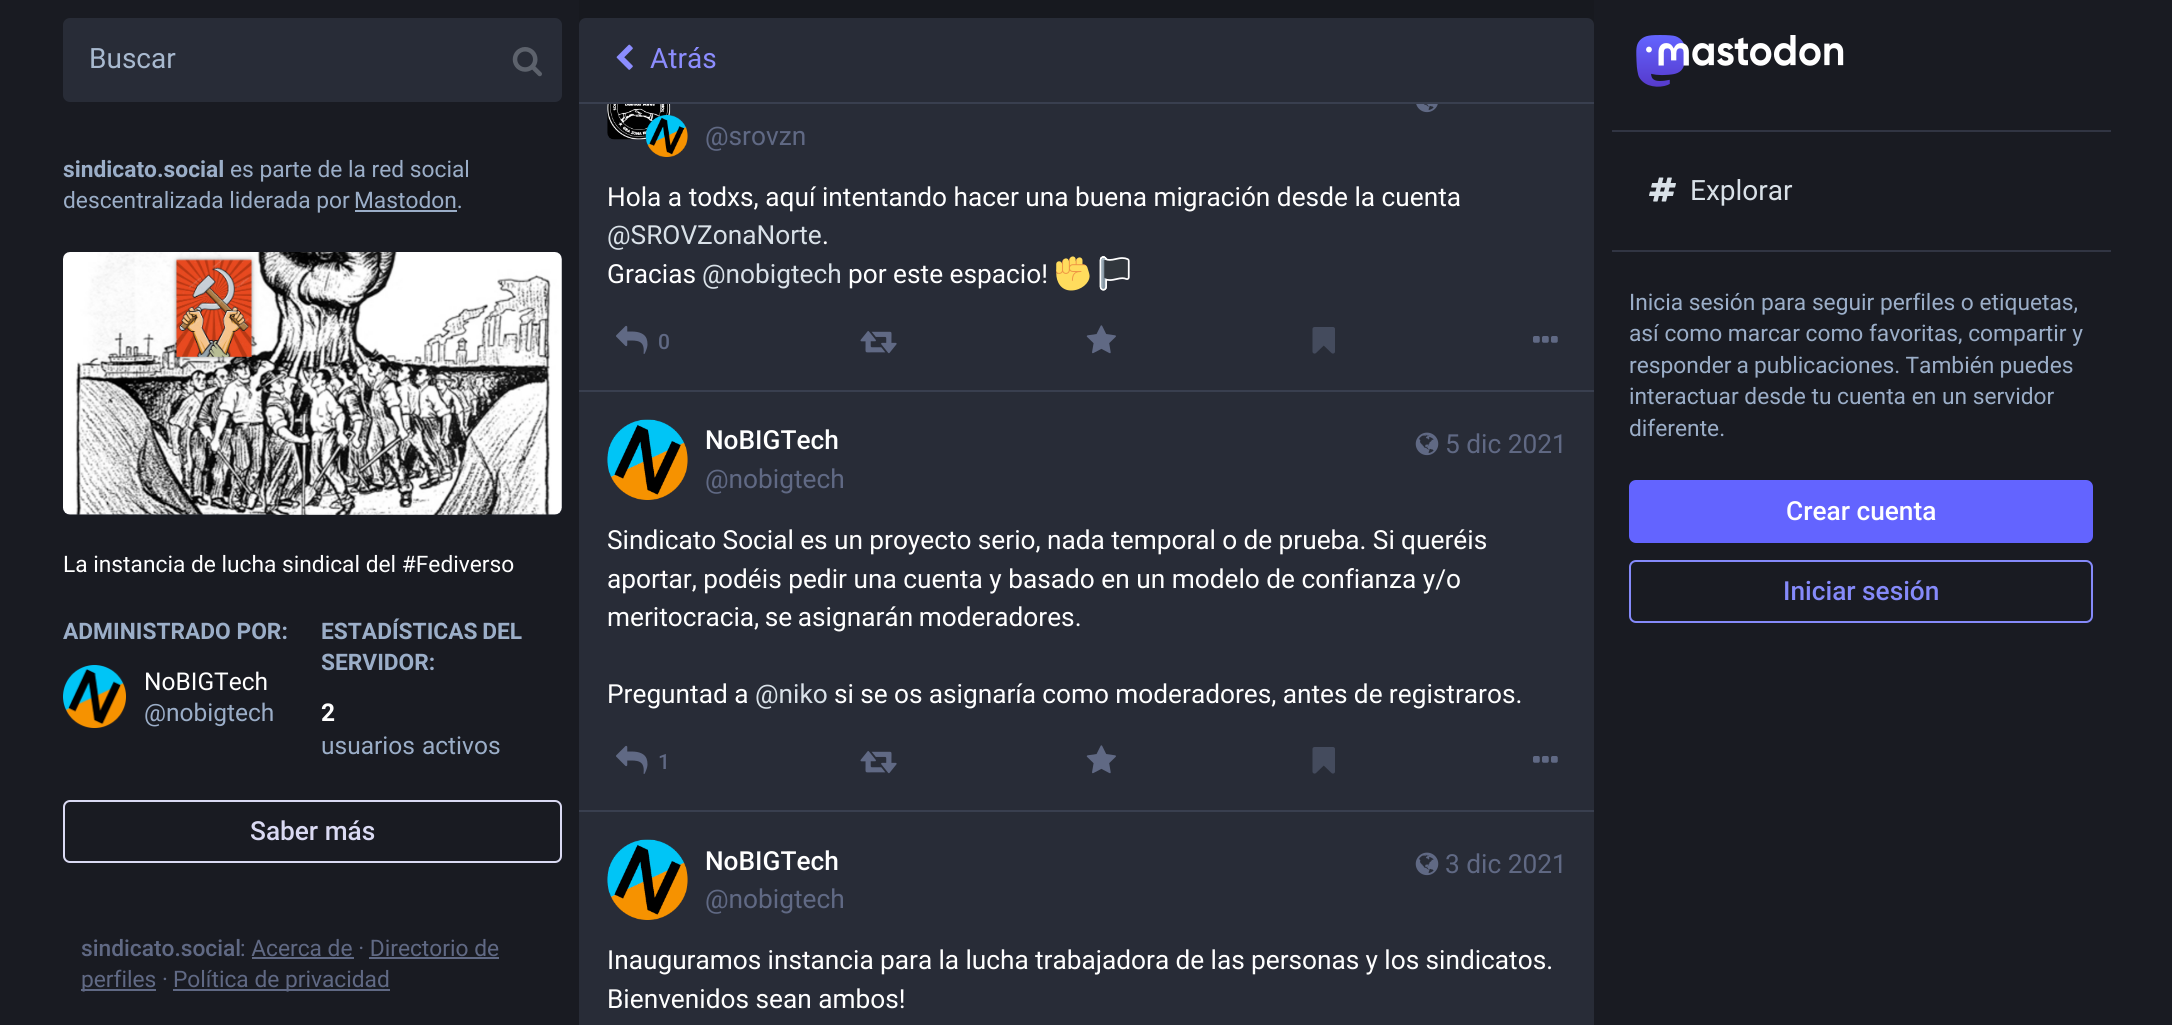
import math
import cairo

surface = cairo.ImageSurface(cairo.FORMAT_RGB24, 2172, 1025)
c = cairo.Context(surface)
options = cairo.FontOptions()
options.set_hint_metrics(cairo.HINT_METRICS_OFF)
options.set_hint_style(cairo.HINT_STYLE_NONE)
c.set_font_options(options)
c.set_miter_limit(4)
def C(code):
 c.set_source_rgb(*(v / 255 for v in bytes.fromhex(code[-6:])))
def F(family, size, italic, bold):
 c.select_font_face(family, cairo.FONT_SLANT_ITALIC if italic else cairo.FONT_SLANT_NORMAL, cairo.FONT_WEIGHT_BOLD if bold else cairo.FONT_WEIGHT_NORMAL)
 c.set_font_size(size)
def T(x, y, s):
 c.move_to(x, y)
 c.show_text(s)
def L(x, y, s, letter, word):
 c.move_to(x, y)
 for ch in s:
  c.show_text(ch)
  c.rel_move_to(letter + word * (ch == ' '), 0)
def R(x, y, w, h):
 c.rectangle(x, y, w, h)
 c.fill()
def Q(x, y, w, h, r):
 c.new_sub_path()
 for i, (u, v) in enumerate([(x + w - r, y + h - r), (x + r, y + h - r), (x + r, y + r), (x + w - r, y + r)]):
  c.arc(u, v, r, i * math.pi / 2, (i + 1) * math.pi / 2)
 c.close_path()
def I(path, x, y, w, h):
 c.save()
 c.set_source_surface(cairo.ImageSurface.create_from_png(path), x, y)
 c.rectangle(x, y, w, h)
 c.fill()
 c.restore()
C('191b22')
c.paint()
C('282c37')
Q(63,18,499,84,7)
c.fill()
F('Roboto',28,0,0)
C('a8b9cf')
T(89,68,'Buscar')
I('1.png',512,47,30,30)
F('Roboto',22.75,0,1)
C('9baec8')
T(63,177,'sindicato.social')
F('Roboto',22.75,0,0)
T(230,177,'es parte de la red social')
T(63,208,'descentralizada liderada por')
T(354,208,'Mastodon.')
R(355,210,102,2)
C('282c37')
Q(63,252,499,263,7)
c.fill()
I('2.png',63,252,499,263)
C('ffffff')
T(63,572,'La instancia de lucha sindical del #Fediverso')
F('Roboto',22.75,0,1)
C('9baec8')
T(63,639,'ADMINISTRADO POR:')
I('3.png',63,665,63,63)
F('Roboto',24.5,0,0)
C('ffffff')
T(144,690,'NoBIGTech')
C('9baec8')
T(144,721,'@nobigtech')
F('Roboto',22.75,0,1)
L(321,639,'ESTADÍSTICAS DEL',0,-1)
T(321,670,'SERVIDOR:')
F('Roboto',24.5,0,1)
C('ffffff')
T(321,721,'2')
F('Roboto',24.5,0,0)
C('9baec8')
L(321,754,'usuarios activos',0,1)
Q(64,801,497,61,6)
C('dadaf3')
c.stroke()
F('Roboto Medium',26.25,0,0)
T(250,840,'Saber más')
F('Roboto Medium',22.75,0,0)
C('606984')
T(81,956,'sindicato.social')
F('Roboto',22.75,0,0)
T(240,956,': Acerca de · Directorio de')
R(252,957,102,2)
R(81,989,75,2)
T(81,987,'perfiles ·')
R(369,957,130,2)
R(173,989,217,2)
T(173,987,'Política de privacidad')
C('17191f')
R(579,0,1015,25)
C('282c37')
c.new_path()
c.move_to(586,18)
c.line_to(1587,18)
c.curve_to(1591,18,1594,21,1594,25)
c.line_to(1594,103)
c.line_to(579,103)
c.line_to(579,25)
c.curve_to(579,21,582,18,586,18)
c.close_path()
c.fill()
C('393f4f')
R(579,102,1015,2)
I('4.png',616,44,17,26)
F('Roboto',28,0,0)
C('8c8dff')
T(650,68,'Atrás')
C('282c37')
R(579,104,1015,921)
C('393f4f')
R(579,390,1015,2)
I('5.png',1416,104,22,9)
I('6.png',607,104,64,36)
I('7.png',645,115,43,42)
F('Roboto',26.25,0,0)
C('606984')
T(705,145,'@srovzn')
C('ffffff')
T(607,206,'Hola a todxs, aquí intentando hacer una buena migración desde la cuenta')
C('d9e1e8')
T(607,244,'@SROVZonaNorte')
C('ffffff')
T(822,244,'.')
T(607,283,'Gracias')
C('d9e1e8')
T(702,283,'@nobigtech')
C('ffffff')
T(848,283,'por este espacio!')
I('8.png',1056,256,34,35)
I('9.png',1099,256,31,35)
I('10.png',616,325,32,29)
F('Roboto Medium',21,0,0)
C('606984')
T(658,349,'0')
I('11.png',860,331,37,23)
I('12.png',1086,325,30,29)
I('13.png',1312,327,23,27)
I('14.png',1533,336,25,7)
C('393f4f')
R(579,810,1015,2)
I('15.png',607,419,81,81)
F('Roboto Medium',26.25,0,0)
C('ffffff')
T(705,449,'NoBIGTech')
F('Roboto',26.25,0,0)
C('606984')
T(705,488,'@nobigtech')
I('16.png',1415,432,24,24)
T(1445,453,'5 dic 2021')
C('ffffff')
L(607,549,'Sindicato Social es un proyecto serio, nada temporal o de prueba. Si queréis',0,-.2)
T(607,588,'aportar, podéis pedir una cuenta y basado en un modelo de confianza y/o')
L(607,626,'meritocracia, se asignarán moderadores.',0,-1)
T(607,703,'Preguntad a')
C('d9e1e8')
T(755,703,'@niko')
C('ffffff')
L(834,703,'si se os asignaría como moderadores, antes de registraros.',0,-.25)
I('10.png',616,745,32,29)
F('Roboto Medium',21,0,0)
C('606984')
T(658,769,'1')
I('11.png',860,751,37,23)
I('12.png',1086,745,30,29)
I('13.png',1312,747,23,27)
I('14.png',1533,756,25,7)
I('15.png',607,839,81,81)
F('Roboto Medium',26.25,0,0)
C('ffffff')
T(705,870,'NoBIGTech')
F('Roboto',26.25,0,0)
C('606984')
T(705,908,'@nobigtech')
I('17.png',1415,852,24,24)
T(1445,873,'3 dic 2021')
C('ffffff')
L(607,969,'Inauguramos instancia para la lucha trabajadora de las personas y los sindicatos.',0,-.25)
T(607,1008,'Bienvenidos sean ambos!')
I('18.png',1636,35,208,52)
C('313543')
R(1612,130,499,2)
I('19.png',1649,177,27,25)
F('Roboto',28,0,0)
C('d9e1e8')
T(1690,200,'Explorar')
C('313543')
R(1612,250,499,2)
F('Roboto',22.75,0,0)
C('9baec8')
T(1629,310,'Inicia sesión para seguir perfiles o etiquetas,')
T(1629,341,'así como marcar como favoritas, compartir y')
L(1629,373,'responder a publicaciones. También puedes',0,-.5)
T(1629,404,'interactuar desde tu cuenta en un servidor')
T(1629,436,'diferente.')
C('6364ff')
Q(1629,480,464,63,7)
c.fill()
F('Roboto Medium',26.25,0,0)
C('ffffff')
T(1786,520,'Crear cuenta')
Q(1630,561,462,61,6)
C('858afa')
c.stroke()
T(1783,600,'Iniciar sesión')
surface.write_to_png('o.png')
